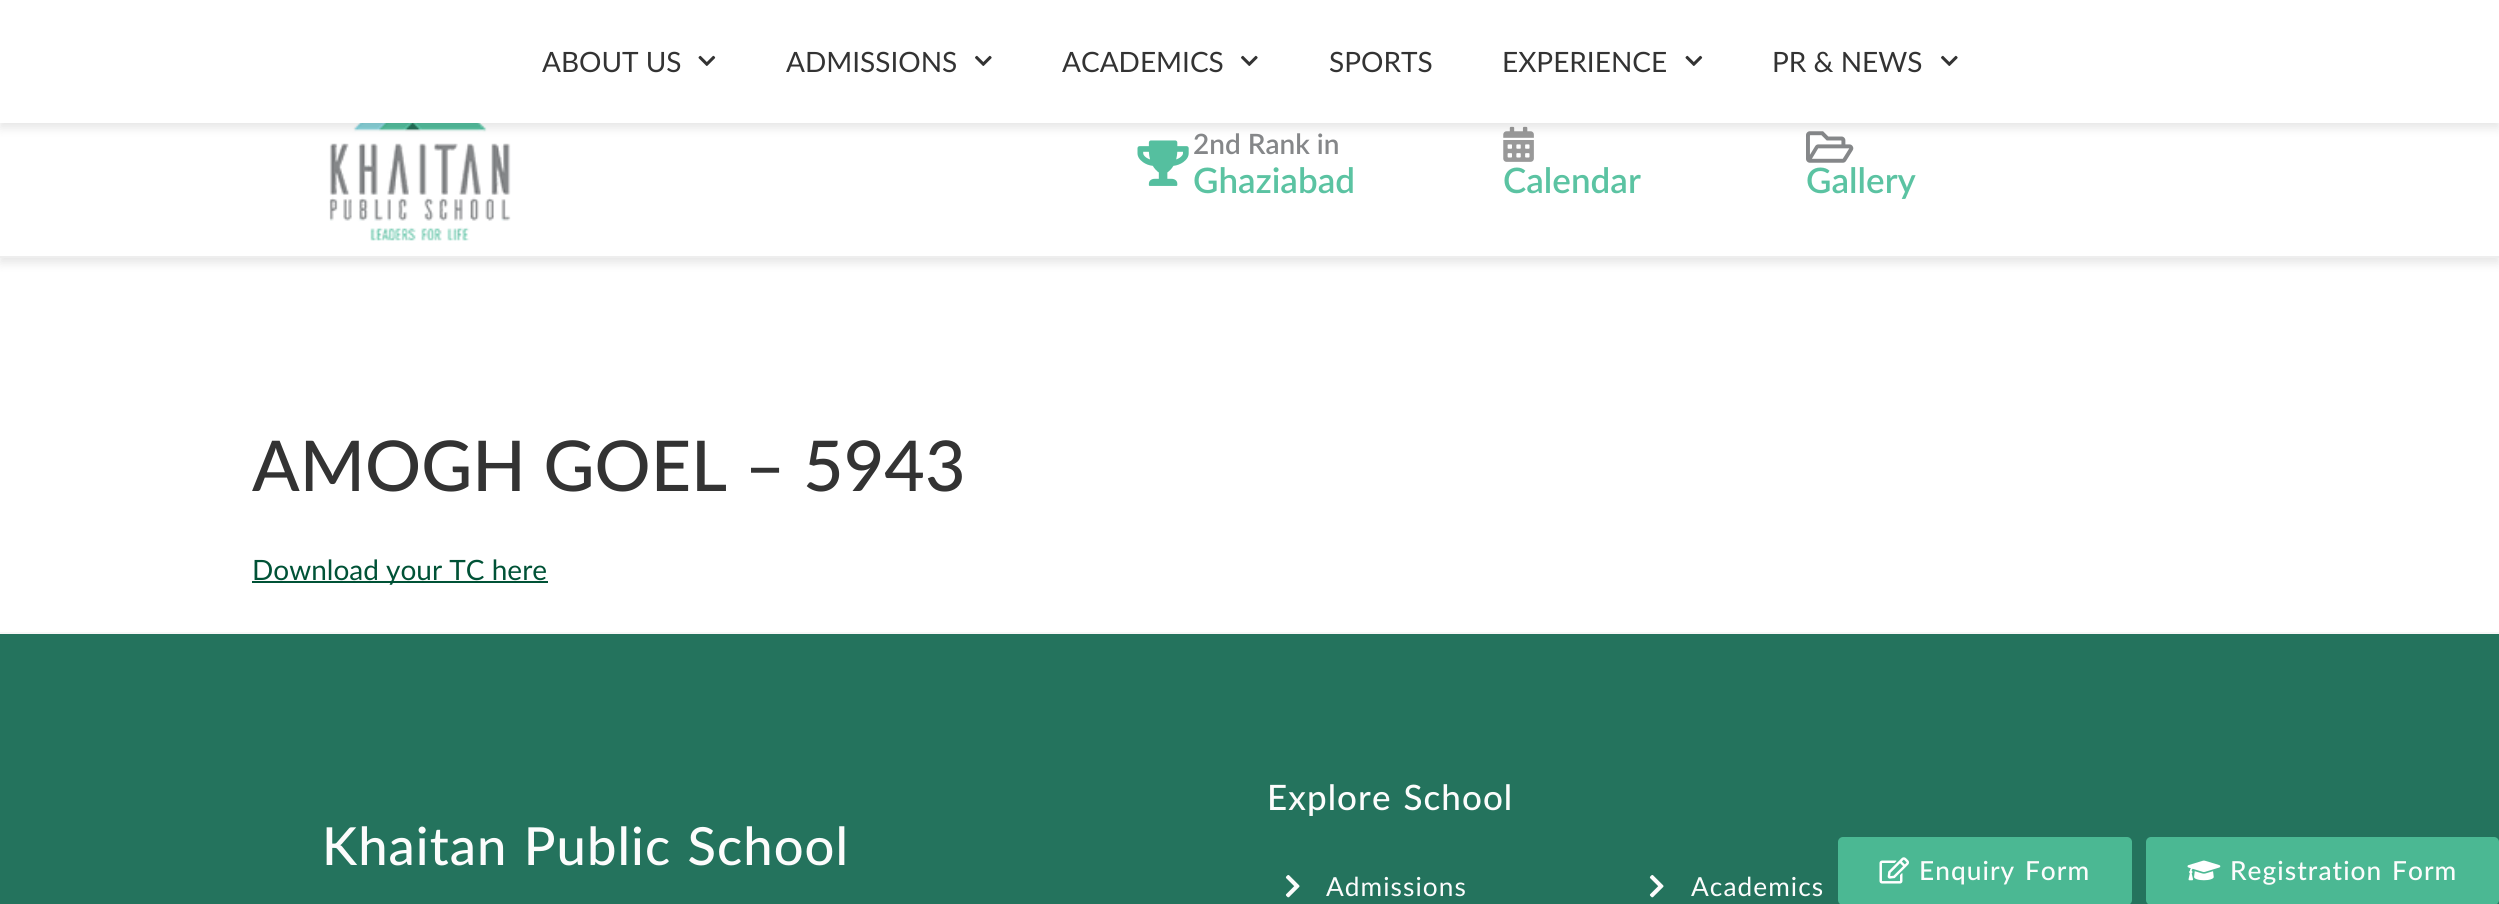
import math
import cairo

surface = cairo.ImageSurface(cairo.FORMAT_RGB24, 2499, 904)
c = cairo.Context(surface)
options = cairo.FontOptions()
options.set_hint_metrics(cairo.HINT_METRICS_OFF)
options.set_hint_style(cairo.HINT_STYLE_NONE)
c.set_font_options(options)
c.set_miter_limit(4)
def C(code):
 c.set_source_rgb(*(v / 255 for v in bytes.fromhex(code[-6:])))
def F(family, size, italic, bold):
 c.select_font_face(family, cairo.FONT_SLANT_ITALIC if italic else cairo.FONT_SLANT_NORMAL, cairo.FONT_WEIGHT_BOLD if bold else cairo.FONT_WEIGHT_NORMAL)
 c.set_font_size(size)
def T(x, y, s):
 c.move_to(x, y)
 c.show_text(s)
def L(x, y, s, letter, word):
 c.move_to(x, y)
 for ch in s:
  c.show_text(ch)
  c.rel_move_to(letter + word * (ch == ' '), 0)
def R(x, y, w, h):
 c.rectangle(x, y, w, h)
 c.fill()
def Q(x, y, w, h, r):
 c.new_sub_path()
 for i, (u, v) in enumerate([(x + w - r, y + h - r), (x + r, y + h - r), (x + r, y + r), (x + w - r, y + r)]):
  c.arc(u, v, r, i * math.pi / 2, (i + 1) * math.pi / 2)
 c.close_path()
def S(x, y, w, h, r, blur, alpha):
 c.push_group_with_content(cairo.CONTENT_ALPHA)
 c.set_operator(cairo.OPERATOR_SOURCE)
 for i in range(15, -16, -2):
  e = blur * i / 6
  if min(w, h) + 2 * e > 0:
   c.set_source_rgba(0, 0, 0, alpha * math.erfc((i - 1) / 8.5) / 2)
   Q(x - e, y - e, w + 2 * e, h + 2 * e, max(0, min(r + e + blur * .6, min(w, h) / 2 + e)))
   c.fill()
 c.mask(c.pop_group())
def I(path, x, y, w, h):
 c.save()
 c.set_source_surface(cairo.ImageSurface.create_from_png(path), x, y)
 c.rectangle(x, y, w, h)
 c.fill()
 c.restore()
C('ffffff')
c.paint()
C('000000')
S(0,86,2499,177,0,5,.1)
C('ffffff')
R(0,123,2499,133)
I('3.png',329,123,182,118)
I('4.png',1137,140,52,46)
I('5.png',1503,126,31,36)
I('6.png',1806,131,48,32)
C('000000')
S(0,5,2499,123,0,5,.1)
C('ffffff')
R(0,0,2499,123)
F('Lato',28,0,0)
C('333333')
T(542,72,'ABOUT US')
I('1.png',698,55,18,11)
T(786,72,'ADMISSIONS')
I('2.png',975,55,17,11)
T(1062,72,'ACADEMICS')
I('2.png',1241,55,17,11)
T(1329,72,'SPORTS')
T(1502,72,'EXPERIENCE')
I('1.png',1685,55,18,11)
T(1772,72,'PR & NEWS')
I('2.png',1941,55,17,11)
C('eeeeee')
R(0,256,2499,2)
F('Lato SemiBold',28,0,0)
C('858789')
T(1193,154,'2nd Rank in')
F('Lato SemiBold',35,0,0)
C('5bc3a2')
T(1193,193,'Ghaziabad')
T(1503,193,'Calendar')
T(1806,193,'Gallery')
F('Lato Medium',70,0,0)
C('333333')
T(252,491,'AMOGH GOEL – 5943')
C('005236')
R(252,581,296,2)
F('Lato',28,0,0)
T(252,580,'Download your TC here')
C('24735d')
R(0,634,2499,270)
C('f7f7f7')
R(0,632,2499,2)
F('Lato Medium',35,0,0)
C('fcfcfc')
L(1267,810,'Explore School',1.05,2)
I('7.png',1285,875,15,23)
F('Lato',26.25,0,0)
L(1326,896,'Admissions',1.05,0)
I('7.png',1649,875,15,23)
L(1691,896,'Academics',1.05,0)
F('Lato Medium',52.5,0,0)
L(322,865,'Khaitan Public School',1.05,2)
C('4bb893')
Q(1838,837,294,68,5)
c.fill()
I('8.png',1879,857,30,27)
F('Lato Medium',26.25,0,0)
C('fcfcfc')
L(1919,880,'Enquiry Form',1.05,2)
C('4bb893')
Q(2146,837,353,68,5)
c.fill()
I('9.png',2187,860,34,21)
C('fcfcfc')
L(2230,880,'Registration Form',1.05,2)
surface.write_to_png('o.png')
